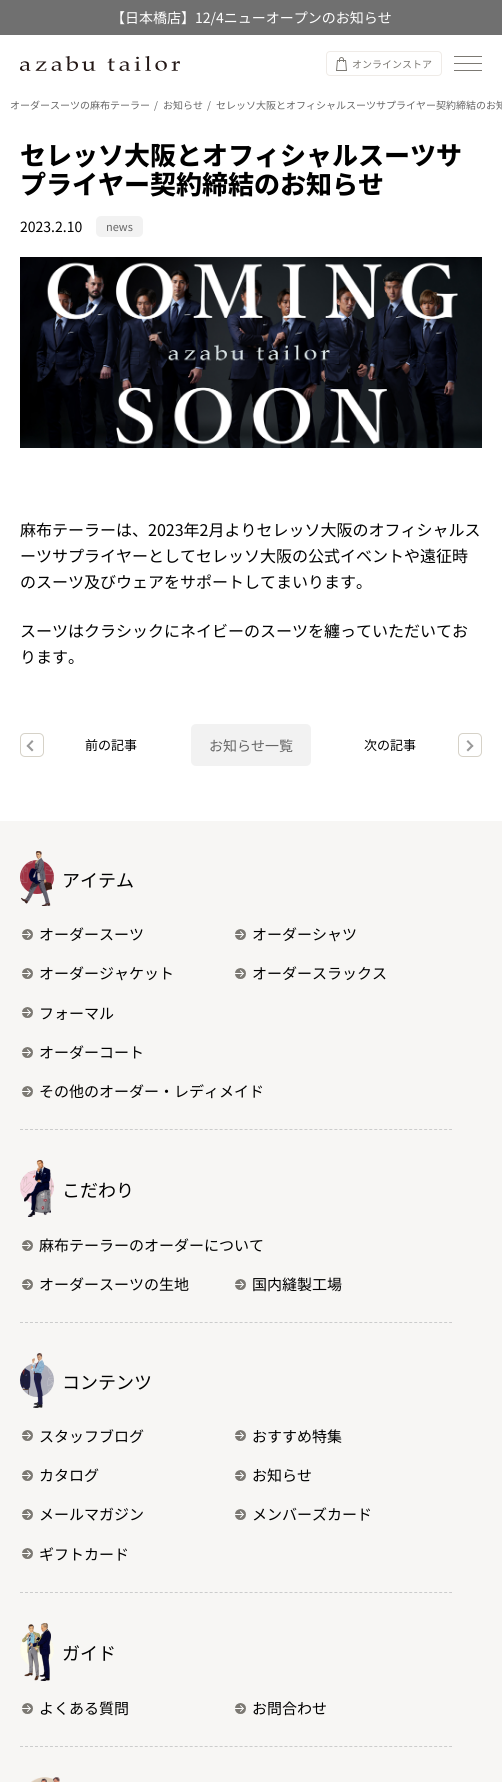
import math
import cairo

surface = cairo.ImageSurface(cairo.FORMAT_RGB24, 502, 1782)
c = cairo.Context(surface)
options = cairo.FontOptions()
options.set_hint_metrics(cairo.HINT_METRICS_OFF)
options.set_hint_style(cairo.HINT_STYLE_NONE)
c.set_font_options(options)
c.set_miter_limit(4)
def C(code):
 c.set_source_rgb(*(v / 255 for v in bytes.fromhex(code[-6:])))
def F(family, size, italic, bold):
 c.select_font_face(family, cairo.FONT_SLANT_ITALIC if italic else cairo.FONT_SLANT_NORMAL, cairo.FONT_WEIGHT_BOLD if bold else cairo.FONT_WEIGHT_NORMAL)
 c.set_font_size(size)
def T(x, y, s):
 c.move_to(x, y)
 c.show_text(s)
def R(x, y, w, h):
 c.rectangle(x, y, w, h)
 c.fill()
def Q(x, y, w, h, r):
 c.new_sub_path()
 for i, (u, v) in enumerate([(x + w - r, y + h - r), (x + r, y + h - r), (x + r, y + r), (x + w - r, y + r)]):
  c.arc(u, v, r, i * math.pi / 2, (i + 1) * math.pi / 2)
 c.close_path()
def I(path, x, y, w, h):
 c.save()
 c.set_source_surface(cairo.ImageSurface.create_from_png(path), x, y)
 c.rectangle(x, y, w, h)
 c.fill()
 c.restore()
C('ffffff')
c.paint()
C('707070')
R(0,0,502,35)
F('Noto Sans JP',14,0,0)
C('ffffff')
T(111,23,'【日本橋店】12/4ニューオープンのお知らせ')
I('1.png',20,56,160,15)
Q(326.5,51.5,115,24,3.5)
C('efebe7')
c.set_line_width(1)
c.stroke()
I('2.png',336,57,11,14)
F('Noto Sans JP',10,0,0)
C('7c7973')
T(352,68,'オンラインストア')
R(454,56,28,1)
R(454,63,28,1)
R(454,70,28,1)
C('666666')
T(10,109,'オーダースーツの麻布テーラー')
T(154,109,'/')
T(163,109,'お知らせ')
T(207,109,'/')
T(216,109,'セレッソ大阪とオフィシャルスーツサプライヤー契約締結のお知')
F('Noto Sans JP ExtraBold',26,0,0)
C('000000')
T(20,165,'セレッソ大阪とオフィシャルスーツサ')
T(20,194,'プライヤー契約締結のお知らせ')
F('Noto Sans JP',14,0,0)
T(20,232,'2023.2.10')
C('f2f2f2')
Q(96,216,47,21,5)
c.fill()
F('Noto Sans JP',11,0,0)
C('666666')
T(106,231,'news')
I('3.png',20,257,462,191)
F('Noto Sans JP',16,0,0)
C('000000')
T(20,536,'麻布テーラーは、2023年2月よりセレッソ大阪のオフィシャルス')
T(20,562,'ーツサプライヤーとしてセレッソ大阪の公式イベントや遠征時')
T(20,588,'のスーツ及びウェアをサポートしてまいります。')
T(20,637,'スーツはクラシックにネイビーのスーツを纏っていただいてお')
T(20,663,'ります。')
Q(20.5,733.5,23,23,4.5)
C('d6d2c8')
c.stroke()
C('999999')
c.new_path()
c.move_to(28,744.5)
c.line_to(33.5,750)
c.line_to(32,751.5)
c.line_to(26.5,746)
c.close_path()
c.fill()
c.new_path()
c.move_to(32,740)
c.line_to(33.5,741.5)
c.line_to(28,747)
c.line_to(26.5,746)
c.close_path()
c.fill()
F('Noto Sans JP',13,0,0)
C('000000')
T(85,750,'前の記事')
C('f2f2f2')
Q(191,724,120,42,5)
c.fill()
F('Noto Sans JP',14,0,0)
C('666666')
T(209,751,'お知らせ一覧')
F('Noto Sans JP',13,0,0)
C('000000')
T(364,750,'次の記事')
Q(458.5,733.5,23,23,4.5)
C('d6d2c8')
c.stroke()
C('999999')
c.new_path()
c.move_to(468,740)
c.line_to(473.5,746)
c.line_to(472,747)
c.line_to(466.5,741.5)
c.close_path()
c.fill()
c.new_path()
c.move_to(472,744.5)
c.line_to(473.5,746)
c.line_to(468,751.5)
c.line_to(466.5,750)
c.close_path()
c.fill()
C('f7f6f4')
R(0,821,502,961)
I('4.png',20,851,34,55)
F('Noto Sans JP',18,0,0)
C('000000')
T(62,887,'アイテム')
I('5.png',22,929,11,11)
F('Noto Sans JP',15,0,0)
T(39,940,'オーダースーツ')
I('5.png',235,929,11,11)
T(252,940,'オーダーシャツ')
I('5.png',22,968,11,11)
T(39,979,'オーダージャケット')
I('5.png',235,968,11,11)
T(252,979,'オーダースラックス')
I('5.png',22,1007,11,11)
T(39,1019,'フォーマル')
I('6.png',22,1047,11,11)
T(39,1058,'オーダーコート')
I('5.png',22,1086,11,11)
T(39,1097,'その他のオーダー・レディメイド')
c.new_path()
c.move_to(20,1129.5)
c.line_to(452,1129.5)
C('cccccc')
c.set_dash([3,1.99])
c.stroke()
I('7.png',20,1160,34,57)
F('Noto Sans JP',18,0,0)
C('000000')
T(62,1197,'こだわり')
I('5.png',22,1240,11,11)
F('Noto Sans JP',15,0,0)
T(39,1251,'麻布テーラーのオーダーについて')
I('5.png',22,1279,11,11)
T(39,1290,'オーダースーツの生地')
I('5.png',235,1279,11,11)
T(252,1290,'国内縫製工場')
c.new_path()
c.move_to(20,1322.5)
c.line_to(452,1322.5)
C('cccccc')
c.stroke()
I('8.png',20,1353,34,55)
F('Noto Sans JP',18,0,0)
C('000000')
T(62,1389,'コンテンツ')
I('5.png',22,1430,11,11)
F('Noto Sans JP',15,0,0)
T(39,1442,'スタッフブログ')
I('5.png',235,1430,11,11)
T(252,1442,'おすすめ特集')
I('5.png',22,1470,11,11)
T(39,1481,'カタログ')
I('5.png',235,1470,11,11)
T(252,1481,'お知らせ')
I('5.png',22,1509,11,11)
T(39,1520,'メールマガジン')
I('5.png',235,1509,11,11)
T(252,1520,'メンバーズカード')
I('5.png',22,1548,11,11)
T(39,1560,'ギフトカード')
c.new_path()
c.move_to(20,1592.5)
c.line_to(452,1592.5)
C('cccccc')
c.stroke()
I('9.png',20,1623,34,58)
F('Noto Sans JP',18,0,0)
C('000000')
T(62,1660,'ガイド')
I('5.png',22,1703,11,11)
F('Noto Sans JP',15,0,0)
T(39,1714,'よくある質問')
I('5.png',235,1703,11,11)
T(252,1714,'お問合わせ')
c.new_path()
c.move_to(20,1746.5)
c.line_to(452,1746.5)
C('cccccc')
c.stroke()
I('10.png',31,1777,29,5)
surface.write_to_png('o.png')
